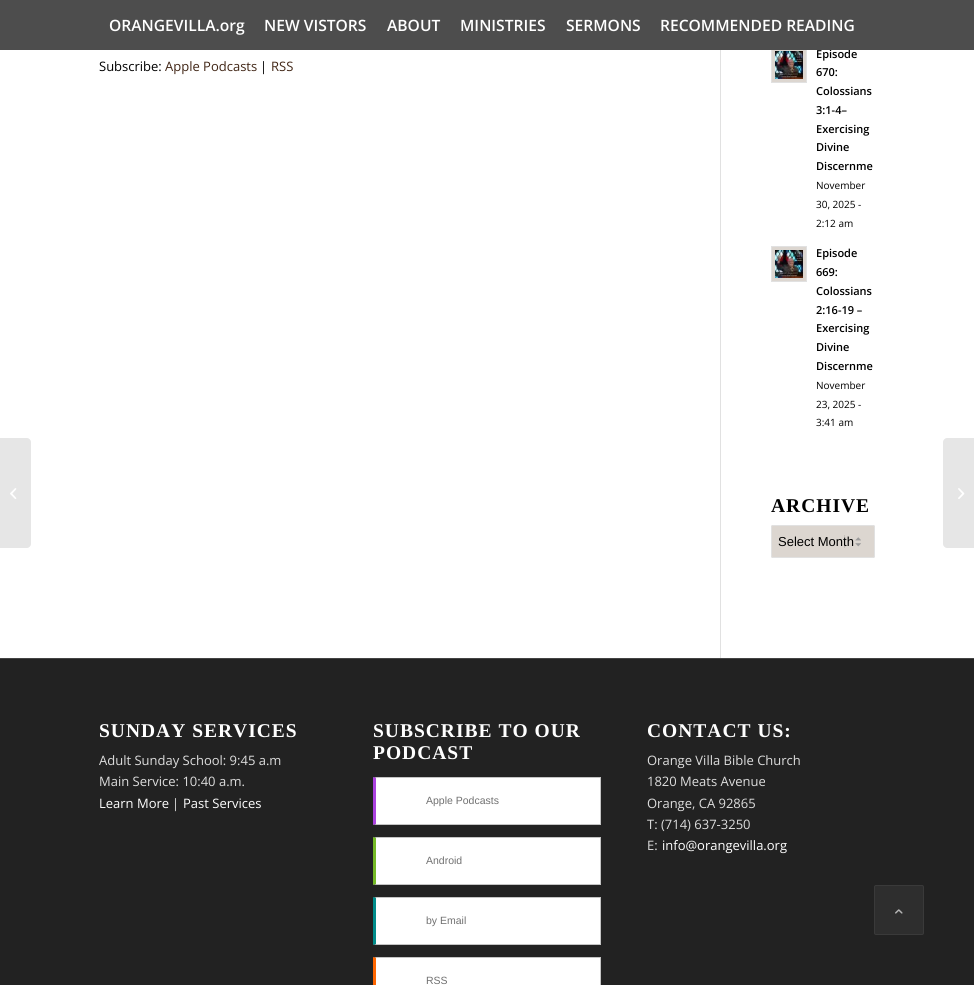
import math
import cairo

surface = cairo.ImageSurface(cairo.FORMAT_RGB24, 974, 985)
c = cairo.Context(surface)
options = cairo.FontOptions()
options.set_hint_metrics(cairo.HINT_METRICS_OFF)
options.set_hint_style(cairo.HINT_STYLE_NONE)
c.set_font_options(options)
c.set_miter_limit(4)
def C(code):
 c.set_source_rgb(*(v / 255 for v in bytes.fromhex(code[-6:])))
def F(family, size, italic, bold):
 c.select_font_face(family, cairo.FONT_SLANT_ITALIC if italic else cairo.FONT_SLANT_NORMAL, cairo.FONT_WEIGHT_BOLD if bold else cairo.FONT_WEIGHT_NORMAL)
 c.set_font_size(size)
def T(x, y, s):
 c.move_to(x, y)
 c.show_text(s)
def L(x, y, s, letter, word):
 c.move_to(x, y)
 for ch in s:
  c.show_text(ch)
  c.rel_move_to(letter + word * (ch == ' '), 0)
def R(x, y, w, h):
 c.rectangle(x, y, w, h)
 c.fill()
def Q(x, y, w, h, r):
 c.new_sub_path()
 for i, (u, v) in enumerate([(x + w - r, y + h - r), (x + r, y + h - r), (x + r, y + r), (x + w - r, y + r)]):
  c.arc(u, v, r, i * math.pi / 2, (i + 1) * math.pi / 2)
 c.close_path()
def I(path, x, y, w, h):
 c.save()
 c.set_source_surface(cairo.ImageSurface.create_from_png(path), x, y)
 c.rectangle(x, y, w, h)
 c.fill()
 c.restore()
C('ffffff')
c.paint()
C('dcd6d0')
R(772,50,34,32)
c.rectangle(771.5,47.5,35,35)
C('e1e1e1')
c.set_line_width(1)
c.stroke()
F('Open Sans SemiBold',11,0,0)
C('000000')
T(816,58,'Episode')
C('4d4d4d')
R(0,0,974,50)
F('Open Sans SemiBold',15.6,0,0)
C('ffffff')
T(109,31,'ORANGEVILLA.org')
T(264,31,'NEW VISTORS')
T(387,31,'ABOUT')
T(460,31,'MINISTRIES')
T(566,31,'SERMONS')
T(660,31,'RECOMMENDED READING')
C('e6e6e6')
c.new_path()
c.move_to(0,438)
c.line_to(27,438)
c.curve_to(29,438,31,440,31,442)
c.line_to(31,544)
c.curve_to(31,546,29,548,27,548)
c.line_to(0,548)
c.close_path()
c.fill()
I('1.png',10,488,7,11)
F('Open Sans',13,0,0)
C('000000')
T(99,71,'Subscribe:')
C('412616')
T(165,71,'Apple Podcasts')
C('000000')
T(260,71,'|')
C('412616')
T(271,71,'RSS')
C('e1e1e1')
R(720,50,1,608)
I('2.png',775,51,28,28)
F('Open Sans SemiBold',11,0,0)
C('000000')
T(816,76,'670:')
T(816,95,'Colossians')
T(816,114,'3:1-4–')
T(816,133,'Exercising')
T(816,151,'Divine')
T(816,170,'Discernme')
F('Open Sans',10,0,0)
T(816,189,'November')
T(816,208,'30, 2025 -')
T(816,227,'2:12 am')
C('dcd6d0')
c.rectangle(771.5,246.5,35,35)
c.fill_preserve()
C('e1e1e1')
c.stroke()
I('3.png',775,250,28,28)
F('Open Sans SemiBold',11,0,0)
C('000000')
T(816,257,'Episode')
T(816,276,'669:')
T(816,295,'Colossians')
T(816,314,'2:16-19 –')
T(816,332,'Exercising')
T(816,351,'Divine')
T(816,370,'Discernme')
F('Open Sans',10,0,0)
T(816,389,'November')
T(816,408,'23, 2025 -')
T(816,426,'3:41 am')
F('Liberation Serif',19.5,0,1)
L(771,512,'ARCHIVE',1,0)
C('dcd6d0')
Q(771,525,104,33,2)
c.fill()
I('4.png',844,535,17,13)
Q(771.5,525.5,103,32,1.5)
C('e1e1e1')
c.stroke()
F('Liberation Sans',13,0,0)
C('000000')
T(778,546,'Select Month')
C('222222')
R(0,659,974,326)
C('444444')
R(0,658,974,1)
F('Liberation Serif',19.5,0,1)
C('ffffff')
L(99,737,'SUNDAY SERVICES',1,0)
F('Open Sans',13,0,0)
C('dddddd')
T(99,765,'Adult Sunday School: 9:45 a.m')
T(99,786,'Main Service: 10:40 a.m.')
C('ffffff')
T(99,808,'Learn More')
C('dddddd')
T(172,808,'|')
C('ffffff')
T(183,808,'Past Services')
F('Liberation Serif',19.5,0,1)
L(373,737,'SUBSCRIBE TO OUR',1,0)
L(373,759,'PODCAST',1,0)
R(376,778,224,46)
C('c4c4c4')
c.new_path()
c.move_to(373,777)
c.line_to(601,777)
c.line_to(600,778)
c.line_to(376,778)
c.close_path()
c.fill()
R(600,777,1,48)
c.new_path()
c.move_to(601,825)
c.line_to(373,825)
c.line_to(376,824)
c.line_to(600,824)
c.close_path()
c.fill()
C('ab42df')
c.new_path()
c.move_to(373,825)
c.line_to(373,777)
c.line_to(376,778)
c.line_to(376,824)
c.close_path()
c.fill()
F('Liberation Sans',10.5,0,0)
C('707070')
T(426,804,'Apple Podcasts')
C('ffffff')
R(376,838,224,46)
C('c4c4c4')
c.new_path()
c.move_to(373,837)
c.line_to(601,837)
c.line_to(600,838)
c.line_to(376,838)
c.close_path()
c.fill()
R(600,837,1,48)
c.new_path()
c.move_to(601,885)
c.line_to(373,885)
c.line_to(376,884)
c.line_to(600,884)
c.close_path()
c.fill()
C('75ba26')
c.new_path()
c.move_to(373,885)
c.line_to(373,837)
c.line_to(376,838)
c.line_to(376,884)
c.close_path()
c.fill()
C('707070')
T(426,864,'Android')
C('ffffff')
R(376,898,224,46)
C('c4c4c4')
c.new_path()
c.move_to(373,897)
c.line_to(601,897)
c.line_to(600,898)
c.line_to(376,898)
c.close_path()
c.fill()
R(600,897,1,48)
c.new_path()
c.move_to(601,945)
c.line_to(373,945)
c.line_to(376,944)
c.line_to(600,944)
c.close_path()
c.fill()
C('018c8b')
c.new_path()
c.move_to(373,945)
c.line_to(373,897)
c.line_to(376,898)
c.line_to(376,944)
c.close_path()
c.fill()
C('707070')
T(426,924,'by Email')
C('ffffff')
R(376,958,224,27)
C('c4c4c4')
c.new_path()
c.move_to(373,957)
c.line_to(601,957)
c.line_to(600,958)
c.line_to(376,958)
c.close_path()
c.fill()
R(600,957,1,28)
C('ff6600')
c.new_path()
c.move_to(373,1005)
c.line_to(373,957)
c.line_to(376,958)
c.line_to(376,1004)
c.close_path()
c.fill()
C('707070')
T(426,984,'RSS')
F('Liberation Serif',19.5,0,1)
C('ffffff')
L(647,737,'CONTACT US:',1,0)
F('Open Sans',13,0,0)
C('dddddd')
T(647,765,'Orange Villa Bible Church')
T(647,786,'1820 Meats Avenue')
T(647,808,'Orange, CA 92865')
T(647,829,'T: (714) 637-3250')
T(647,850,'E:')
C('ffffff')
T(662,850,'info@orangevilla.org')
C('e6e6e6')
c.new_path()
c.move_to(947,438)
c.line_to(974,438)
c.line_to(974,548)
c.line_to(947,548)
c.curve_to(945,548,943,546,943,544)
c.line_to(943,442)
c.curve_to(943,440,945,438,947,438)
c.close_path()
c.fill()
I('5.png',958,488,7,11)
C('2e2e2e')
Q(874.5,885.5,49,49,1.5)
c.fill_preserve()
C('3a3a3a')
c.stroke()
I('6.png',895,909,8,5)
surface.write_to_png('o.png')
